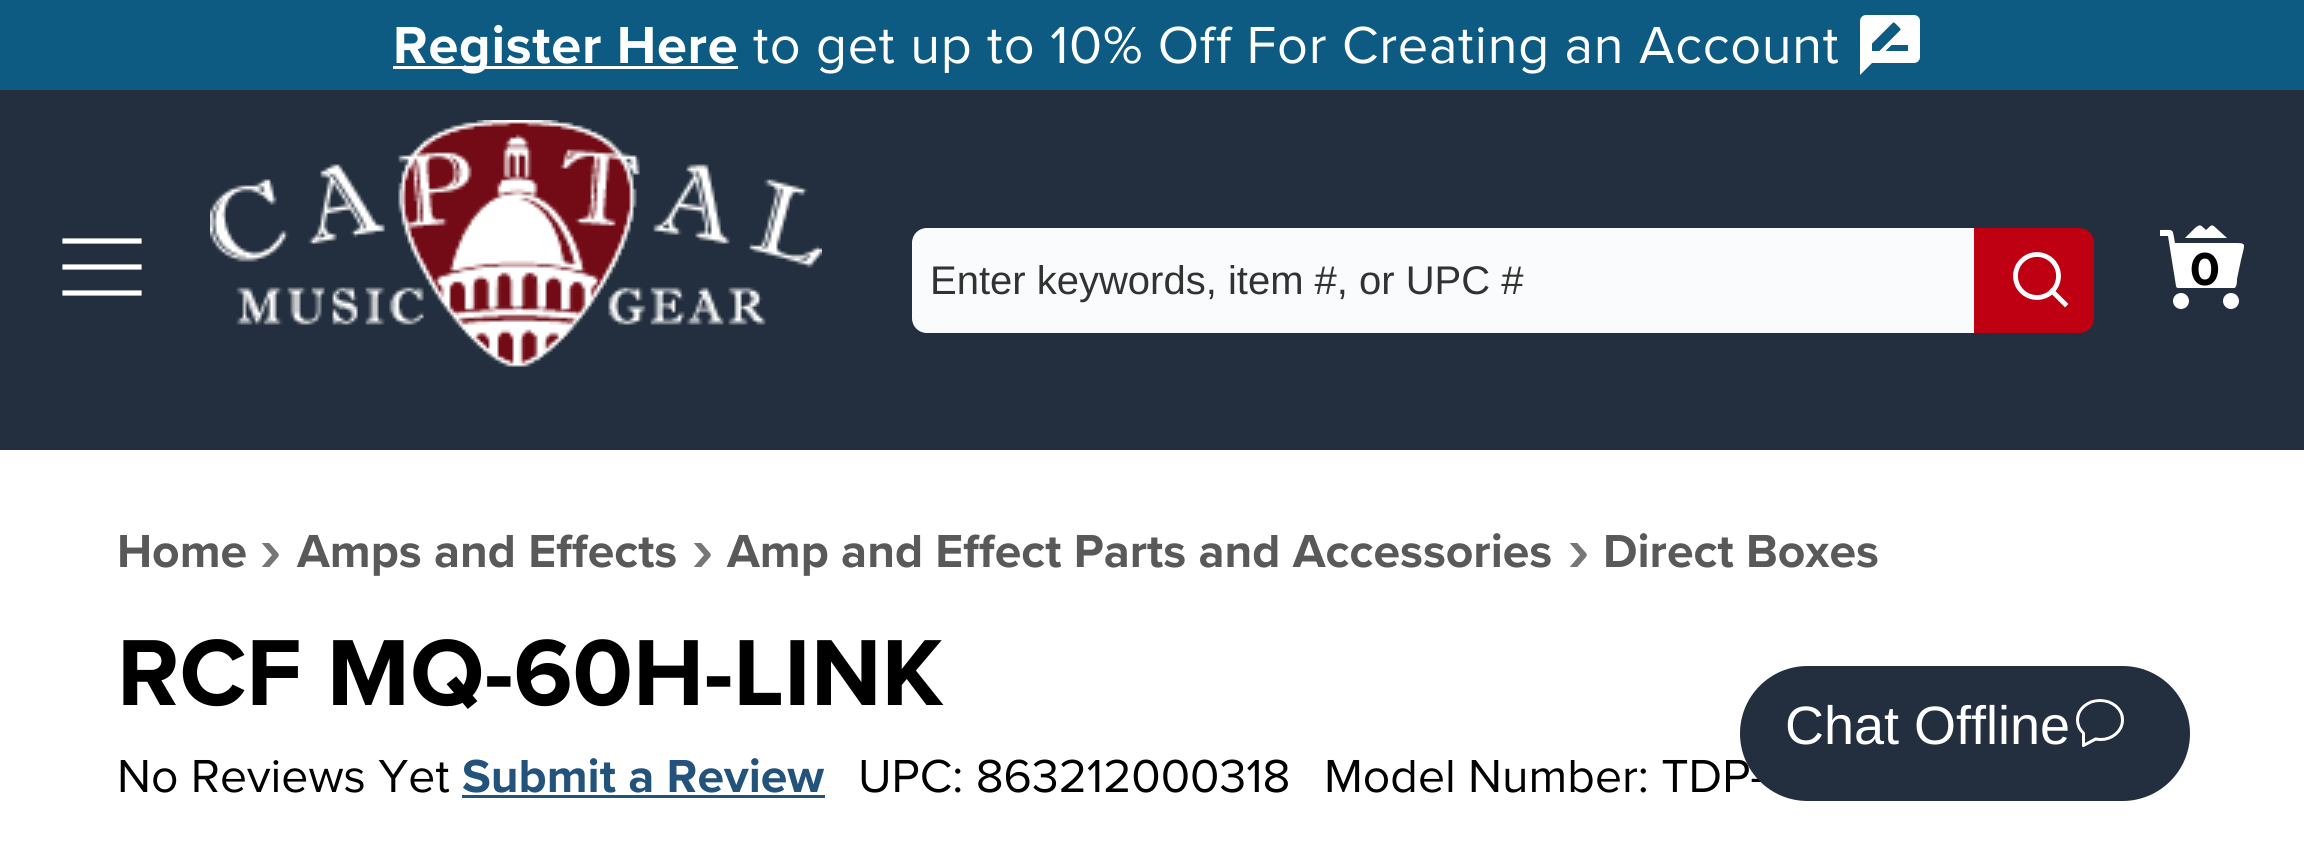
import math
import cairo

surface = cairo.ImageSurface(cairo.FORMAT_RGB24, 2304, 843)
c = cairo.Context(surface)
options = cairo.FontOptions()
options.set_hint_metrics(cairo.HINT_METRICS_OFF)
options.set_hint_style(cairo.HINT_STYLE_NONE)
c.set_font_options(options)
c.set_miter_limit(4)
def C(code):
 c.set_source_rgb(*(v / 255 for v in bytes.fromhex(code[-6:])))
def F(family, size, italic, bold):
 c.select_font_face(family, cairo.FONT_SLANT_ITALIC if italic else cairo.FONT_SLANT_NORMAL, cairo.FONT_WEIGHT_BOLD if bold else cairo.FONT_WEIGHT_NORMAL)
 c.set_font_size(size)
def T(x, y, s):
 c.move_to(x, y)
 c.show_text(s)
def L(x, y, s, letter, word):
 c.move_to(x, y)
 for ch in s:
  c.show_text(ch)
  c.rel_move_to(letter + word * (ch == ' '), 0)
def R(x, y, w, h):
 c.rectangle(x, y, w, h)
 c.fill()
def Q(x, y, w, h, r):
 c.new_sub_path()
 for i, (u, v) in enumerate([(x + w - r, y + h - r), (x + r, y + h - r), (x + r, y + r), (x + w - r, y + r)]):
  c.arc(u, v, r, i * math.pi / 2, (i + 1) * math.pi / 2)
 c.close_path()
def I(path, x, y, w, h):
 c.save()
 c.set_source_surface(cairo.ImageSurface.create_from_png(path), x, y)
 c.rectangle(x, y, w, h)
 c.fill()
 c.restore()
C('ffffff')
c.paint()
C('0d5b82')
R(0,0,2304,90)
C('ffffff')
R(393,66,345,3)
F('Proxima Nova',54,0,1)
L(393,63,'Register Here',.75,0)
F('Proxima Nova',54,0,0)
L(753,63,'to get up to 10% Off For Creating an Account',.75,0)
I('1.png',1860,15,60,60)
C('232f3e')
R(0,90,2304,360)
c.new_path()
c.move_to(65,241)
c.line_to(139,241)
C('ffffff')
c.set_line_width(5.2)
c.set_line_cap(cairo.LINE_CAP_SQUARE)
c.stroke()
c.new_path()
c.move_to(65,267)
c.line_to(139,267)
c.stroke()
c.new_path()
c.move_to(65,293)
c.line_to(139,293)
c.stroke()
I('2.png',210,120,612,247)
C('fafbfc')
c.new_path()
c.move_to(927,228)
c.line_to(1974,228)
c.line_to(1974,333)
c.line_to(927,333)
c.curve_to(918.5,333,912,326.5,912,318)
c.line_to(912,243)
c.curve_to(912,234.5,918.5,228,927,228)
c.close_path()
c.fill()
F('Liberation Sans',40,0,0)
C('323232')
T(930,294,'Enter keywords, item #, or UPC #')
C('bf0012')
c.new_path()
c.move_to(1974,228)
c.line_to(2079,228)
c.curve_to(2087.5,228,2094,234.5,2094,243)
c.line_to(2094,318)
c.curve_to(2094,326.5,2087.5,333,2079,333)
c.line_to(1974,333)
c.close_path()
c.fill()
c.new_path()
c.move_to(2065,304)
c.line_to(2052,291)
C('ffffff')
c.set_line_width(4.8)
c.stroke()
c.arc(2037,276,21.5,0,2 * math.pi)
c.set_line_cap(cairo.LINE_CAP_BUTT)
c.stroke()
c.new_path()
c.move_to(2234,288)
c.line_to(2178,288)
c.curve_to(2177,288,2176,287,2176,286)
c.line_to(2168,236)
c.line_to(2160,236)
c.line_to(2160,230)
c.curve_to(2175,230,2172,228,2175,243)
c.line_to(2230,243)
c.curve_to(2248,243,2245,242,2241,260)
c.line_to(2237,279)
c.curve_to(2237,281,2237,288,2234,288)
c.close_path()
c.fill()
c.new_path()
c.move_to(2227,238)
c.line_to(2216,228)
c.curve_to(2211,223,2211,226,2206,230)
c.curve_to(2201,226,2201,223,2195,228)
c.line_to(2185,238)
c.close_path()
c.fill()
F('Proxima Nova',48,0,1)
C('000000')
T(2190,285,'0')
C('ffffff')
c.new_path()
c.arc(2181,301,8,0,2 * math.pi)
c.fill()
c.arc(2231,301,8,0,2 * math.pi)
c.fill()
C('595959')
T(117,567,'Home')
c.save()
c.rectangle(252,543,30,24)
c.clip()
C('767676')
c.new_path()
c.move_to(258,580)
c.line_to(254,576)
c.line_to(272,555)
c.line_to(254,534)
c.line_to(258,530)
c.line_to(278,553)
c.curve_to(279,554,279,556,278,557)
c.close_path()
c.fill()
c.restore()
T(297,567,'Amps and Effects')
c.save()
c.rectangle(684,543,30,24)
c.clip()
C('767676')
c.new_path()
c.move_to(690,580)
c.line_to(686,576)
c.line_to(704,555)
c.line_to(686,534)
c.line_to(690,530)
c.line_to(710,553)
c.curve_to(711,554,711,556,710,557)
c.close_path()
c.fill()
c.restore()
T(727,567,'Amp and Effect Parts and Accessories')
c.save()
c.rectangle(1560,543,30,24)
c.clip()
C('767676')
c.new_path()
c.move_to(1566,580)
c.line_to(1562,576)
c.line_to(1580,555)
c.line_to(1562,534)
c.line_to(1566,530)
c.line_to(1586,553)
c.curve_to(1587,554,1587,556,1586,557)
c.close_path()
c.fill()
c.restore()
T(1603,567,'Direct Boxes')
F('Proxima Nova',97.25,0,1)
C('000000')
T(117,705,'RCF MQ-60H-LINK')
F('Proxima Nova',48,0,0)
T(117,792,'No Reviews Yet')
F('Proxima Nova',48,0,1)
C('23527b')
T(462,792,'Submit a Review')
R(462,795,363,3)
F('Proxima Nova',48,0,0)
C('000000')
T(858,792,'UPC: 863212000318')
T(1324,792,'Model Number: TDP-')
C('232f3e')
Q(1740,666,450,135,67.5)
c.fill()
F('Liberation Sans',54,0,0)
C('ffffff')
T(1785,744,'Chat Offline')
I('3.png',2076,699,48,48)
surface.write_to_png('o.png')
